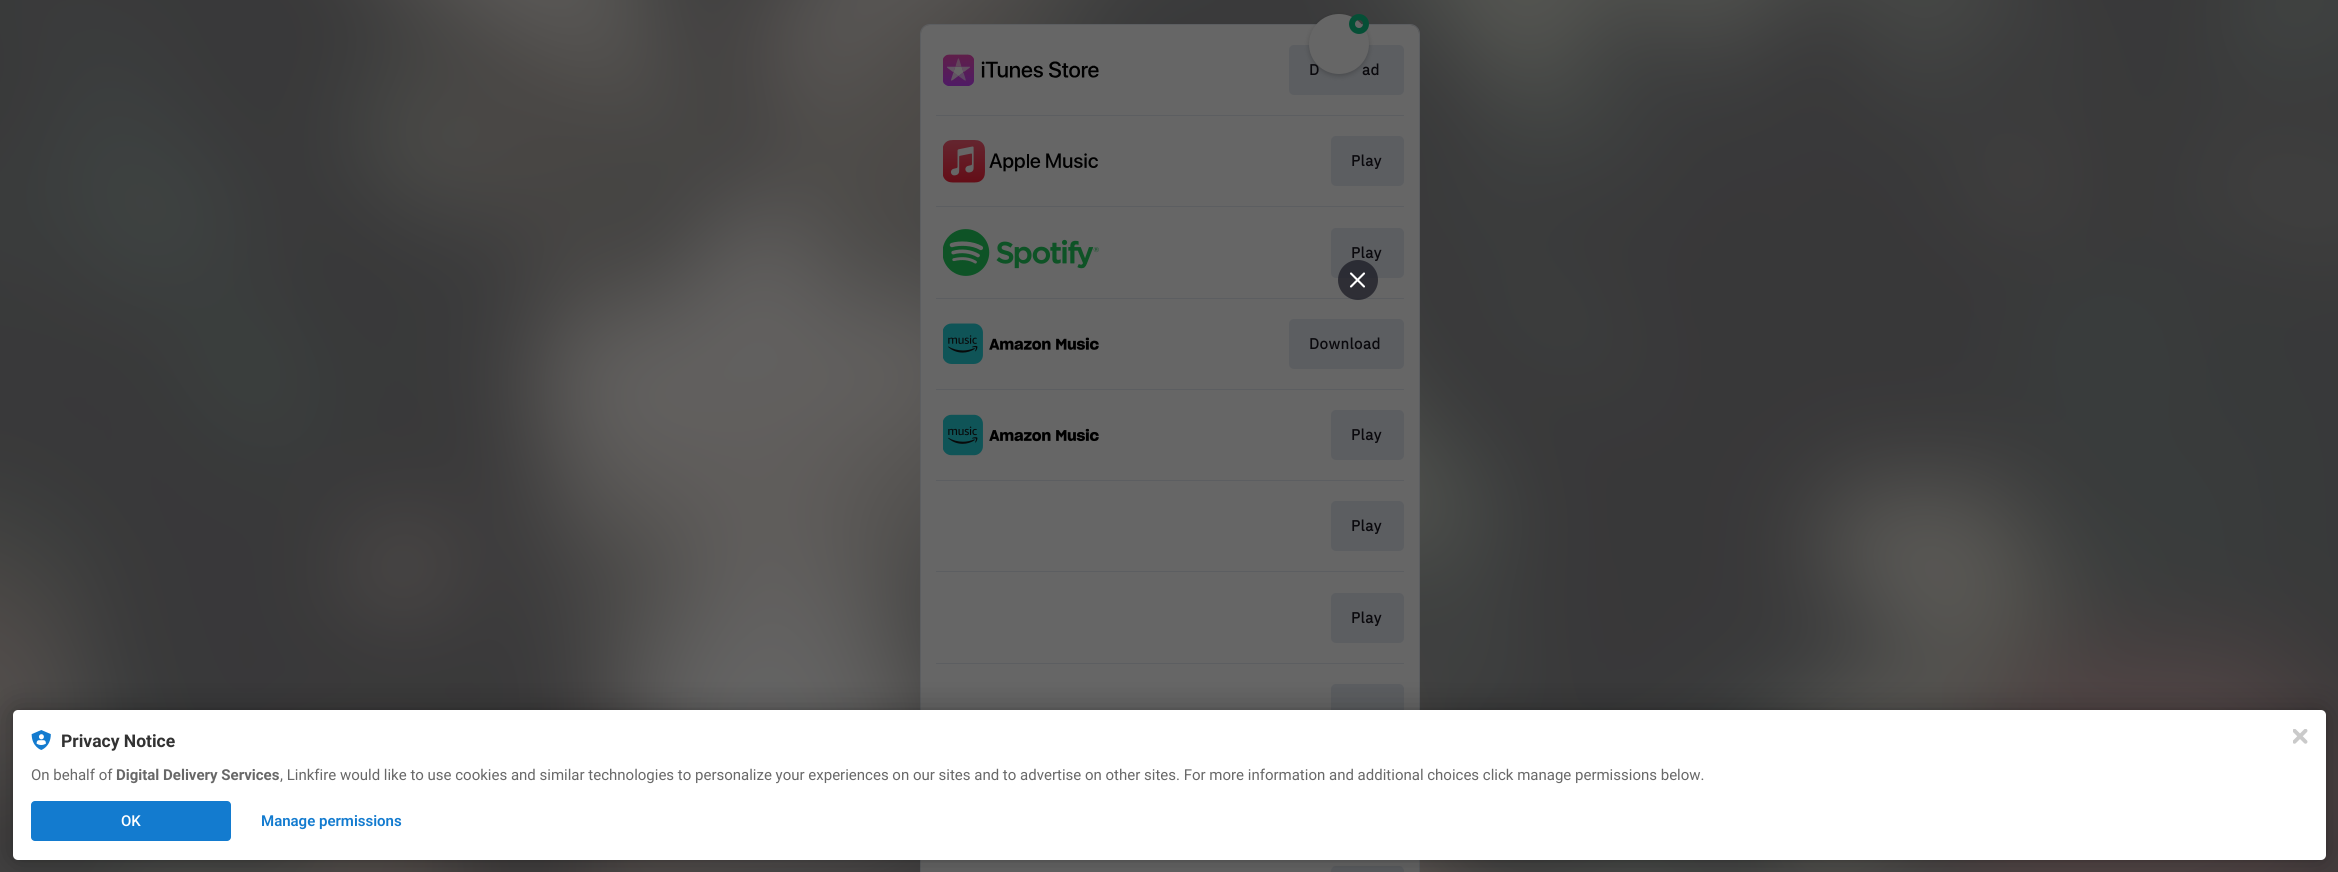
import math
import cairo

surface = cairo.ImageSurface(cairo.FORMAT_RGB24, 2338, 872)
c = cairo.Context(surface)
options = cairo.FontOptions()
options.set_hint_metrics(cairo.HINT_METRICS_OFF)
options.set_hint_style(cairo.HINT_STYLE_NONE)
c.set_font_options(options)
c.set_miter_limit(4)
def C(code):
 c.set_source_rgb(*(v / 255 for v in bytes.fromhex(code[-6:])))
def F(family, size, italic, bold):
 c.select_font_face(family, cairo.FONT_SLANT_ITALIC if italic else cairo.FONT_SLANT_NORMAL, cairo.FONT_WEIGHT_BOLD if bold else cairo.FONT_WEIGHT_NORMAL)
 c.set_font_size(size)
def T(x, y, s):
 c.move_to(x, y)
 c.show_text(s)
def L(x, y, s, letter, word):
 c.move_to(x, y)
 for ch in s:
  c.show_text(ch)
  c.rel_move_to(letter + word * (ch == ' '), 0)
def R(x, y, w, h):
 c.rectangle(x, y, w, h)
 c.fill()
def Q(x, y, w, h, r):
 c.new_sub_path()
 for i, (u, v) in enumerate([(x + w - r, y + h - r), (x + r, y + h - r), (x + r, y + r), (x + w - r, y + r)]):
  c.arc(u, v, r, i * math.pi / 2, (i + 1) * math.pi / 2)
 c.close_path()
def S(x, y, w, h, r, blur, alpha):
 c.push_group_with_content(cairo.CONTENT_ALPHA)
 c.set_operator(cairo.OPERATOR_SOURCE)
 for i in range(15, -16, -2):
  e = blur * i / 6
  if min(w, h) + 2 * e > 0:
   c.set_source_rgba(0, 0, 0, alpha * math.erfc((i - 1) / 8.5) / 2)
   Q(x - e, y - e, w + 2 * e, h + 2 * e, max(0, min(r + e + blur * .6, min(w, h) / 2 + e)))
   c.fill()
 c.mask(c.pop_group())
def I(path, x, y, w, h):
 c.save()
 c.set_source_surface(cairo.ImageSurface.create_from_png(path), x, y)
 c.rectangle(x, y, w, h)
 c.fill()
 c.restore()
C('666666')
c.paint()
I('1.png',0,0,2338,872)
Q(920.5,24.5,499,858,9.5)
C('5c5e61')
c.set_line_width(1)
c.stroke()
C('666666')
Q(921,25,498,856,9)
c.fill()
C('5c5e61')
Q(1289,45,115,50,5)
c.fill()
C('000000')
S(1309,16,60,60,30,2.5,.2)
F('IBM Plex Sans',15,0,1)
C('0a090d')
L(1309,75,'D',.5,0)
L(1362,75,'ad',.5,0)
C('666666')
c.new_path()
c.arc(1339,44,30,0,2 * math.pi)
c.fill()
c.arc(1359,24,7,0,2 * math.pi)
C('054f36')
c.set_line_width(6)
c.stroke()
C('5c5e61')
Q(1331,228,73,50,5)
c.fill()
C('0a090d')
L(1351,258,'Play',.5,0)
C('5c5e61')
R(936,298,468,1)
c.set_source_rgba(0.094,0.09,0.129,0.7)
c.new_path()
c.arc(1358,280,20,0,2 * math.pi)
c.fill()
c.new_path()
c.move_to(1351,273.5)
c.line_to(1364,286.5)
c.move_to(1351,286.5)
c.line_to(1364,273.5)
C('ffffff')
c.set_line_width(2.1)
c.set_line_cap(cairo.LINE_CAP_ROUND)
c.set_line_join(cairo.LINE_JOIN_ROUND)
c.stroke()
I('2.png',943,54,156,32)
C('5c5e61')
R(936,115,468,1)
I('3.png',943,140,155,43)
Q(1331,136,73,50,5)
c.fill()
C('0a090d')
L(1351,166,'Play',.5,0)
C('5c5e61')
R(936,206,468,1)
I('4.png',943,229,156,47)
I('5.png',943,323,156,41)
Q(1289,319,115,50,5)
c.fill()
C('0a090d')
L(1309,349,'Download',.5,0)
C('5c5e61')
R(936,389,468,1)
I('6.png',943,414,156,42)
Q(1331,410,73,50,5)
c.fill()
C('0a090d')
L(1351,440,'Play',.5,0)
C('5c5e61')
R(936,480,468,1)
Q(1331,501,73,50,5)
c.fill()
C('0a090d')
L(1351,531,'Play',.5,0)
C('5c5e61')
R(936,571,468,1)
Q(1331,593,73,50,5)
c.fill()
C('0a090d')
L(1351,623,'Play',.5,0)
C('5c5e61')
R(936,663,468,1)
Q(1331,684,73,50,5)
c.fill()
Q(1331,866,73,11,5)
c.fill()
C('000000')
S(13,710,2313,150,5,2.5,.12)
S(13,710,2313,150,5,15,.3)
C('ffffff')
Q(13,710,2313,150,5)
c.fill()
I('7.png',31,730,20,20)
F('Roboto',17.5,0,1)
C('323232')
T(61,747,'Privacy Notice')
F('Roboto',15,0,0)
C('686868')
T(31,780,'On behalf of')
F('Roboto',15,0,1)
T(116,780,'Digital Delivery Services')
F('Roboto',15,0,0)
T(280,780,', Linkfire would like to use cookies and similar technologies to personalize your experiences on our sites and to advertise on other sites. For more information and additional choices click manage permissions below.')
C('137bcf')
Q(31,801,200,40,4)
c.fill()
F('Roboto Medium',15,0,0)
C('ffffff')
T(121,826,'OK')
F('Roboto SemiBold',15,0,0)
C('137bcf')
T(261,826,'Manage permissions')
I('8.png',2293,729,15,15)
surface.write_to_png('o.png')
